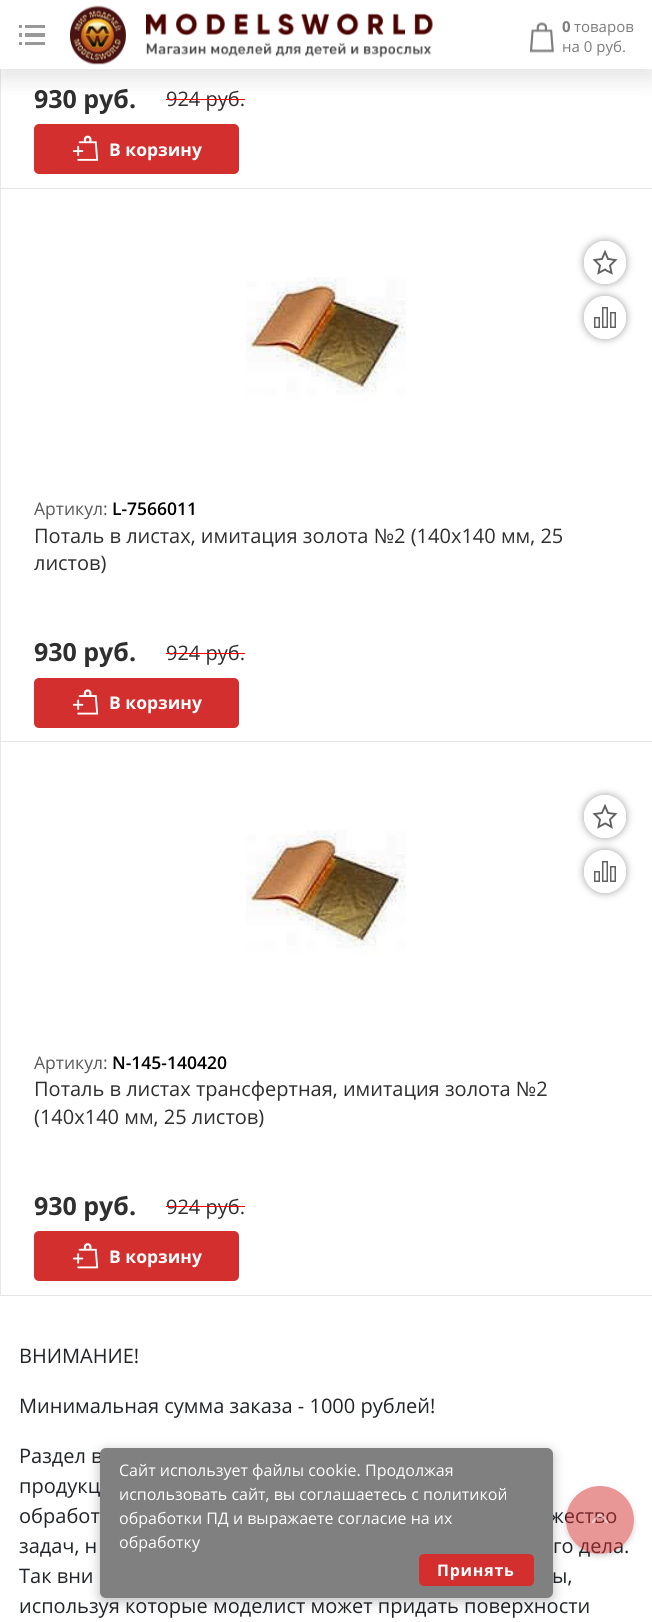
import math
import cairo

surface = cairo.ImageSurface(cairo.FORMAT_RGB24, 652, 1622)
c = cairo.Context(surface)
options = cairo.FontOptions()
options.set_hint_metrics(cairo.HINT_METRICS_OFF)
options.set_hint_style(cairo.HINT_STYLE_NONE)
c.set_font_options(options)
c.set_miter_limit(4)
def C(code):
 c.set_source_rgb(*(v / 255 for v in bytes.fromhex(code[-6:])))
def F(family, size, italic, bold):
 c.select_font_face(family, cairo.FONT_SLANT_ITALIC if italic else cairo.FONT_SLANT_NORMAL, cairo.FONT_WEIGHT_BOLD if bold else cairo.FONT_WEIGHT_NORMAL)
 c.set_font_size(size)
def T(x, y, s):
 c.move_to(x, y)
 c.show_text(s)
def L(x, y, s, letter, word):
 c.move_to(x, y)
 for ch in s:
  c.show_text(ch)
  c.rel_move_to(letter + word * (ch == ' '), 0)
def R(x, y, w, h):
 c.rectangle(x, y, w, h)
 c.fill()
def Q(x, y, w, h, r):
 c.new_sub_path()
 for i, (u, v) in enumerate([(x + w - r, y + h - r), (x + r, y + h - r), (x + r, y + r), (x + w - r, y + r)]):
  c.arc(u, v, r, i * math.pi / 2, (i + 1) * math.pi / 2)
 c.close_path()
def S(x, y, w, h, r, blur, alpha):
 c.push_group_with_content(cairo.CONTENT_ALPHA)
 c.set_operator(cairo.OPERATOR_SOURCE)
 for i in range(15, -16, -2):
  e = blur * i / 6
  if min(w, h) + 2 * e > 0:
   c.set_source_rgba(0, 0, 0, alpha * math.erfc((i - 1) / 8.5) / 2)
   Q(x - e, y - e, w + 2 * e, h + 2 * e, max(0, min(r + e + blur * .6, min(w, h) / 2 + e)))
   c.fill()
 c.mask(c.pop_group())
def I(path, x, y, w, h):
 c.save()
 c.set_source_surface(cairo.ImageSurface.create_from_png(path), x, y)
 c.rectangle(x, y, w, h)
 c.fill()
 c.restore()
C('ffffff')
c.paint()
c.rectangle(.5,-.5,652,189)
C('e7e7e7')
c.set_line_width(1)
c.stroke()
F('Open Sans',20,0,0)
C('2f2f2f')
T(166,106,'924 руб.')
C('ff0000')
R(166,99,79,1)
C('000000')
S(0,11,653,69,0,9.5,.1)
C('ffffff')
R(0,0,652,69)
I('1.png',19,25,26,20)
I('2.png',70,5,363,60)
I('3.png',529,22,25,31)
F('Open Sans',15,0,1)
C('7d7d7d')
T(562,32,'0')
F('Open Sans',15,0,0)
T(574,32,'товаров')
T(562,52,'на 0 руб.')
F('Open Sans',25,0,1)
C('2f2f2f')
T(34,108,'930 руб.')
C('d32f2f')
Q(34,124,205,50,5)
c.fill()
I('4.png',72,135,27,26)
F('Open Sans',17.5,0,1)
C('ffffff')
T(109,156,'В корзину')
c.rectangle(.5,188.5,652,554)
C('e7e7e7')
c.stroke()
I('5.png',246,277,160,124)
c.save()
c.set_fill_rule(cairo.FILL_RULE_EVEN_ODD)
c.new_path()
c.move_to(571,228)
c.line_to(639,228)
c.line_to(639,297)
c.line_to(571,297)
c.close_path()
c.move_to(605,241)
c.curve_to(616.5,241,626,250.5,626,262)
c.line_to(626,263)
c.curve_to(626,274.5,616.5,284,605,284)
c.curve_to(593.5,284,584,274.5,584,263)
c.line_to(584,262)
c.curve_to(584,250.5,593.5,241,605,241)
c.close_path()
c.clip()
C('000000')
S(584,241,42,43,21,4,.38)
c.restore()
c.set_source_rgba(1,1,1,0.8)
Q(584,241,42,43,21)
c.fill()
c.new_path()
c.move_to(605.5,270)
c.line_to(605,269.5)
c.line_to(598.5,273)
c.line_to(600,265.5)
c.line_to(594.5,260)
c.line_to(602,259)
c.line_to(605,252)
c.line_to(608,259)
c.line_to(615.5,260)
c.line_to(610,265.5)
c.line_to(611.5,273)
c.close_path()
C('616161')
c.set_line_width(1.9)
c.set_line_cap(cairo.LINE_CAP_ROUND)
c.stroke()
c.save()
c.set_fill_rule(cairo.FILL_RULE_EVEN_ODD)
c.new_path()
c.move_to(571,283)
c.line_to(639,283)
c.line_to(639,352)
c.line_to(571,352)
c.close_path()
c.move_to(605,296)
c.curve_to(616.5,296,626,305.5,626,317)
c.line_to(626,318)
c.curve_to(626,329.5,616.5,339,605,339)
c.curve_to(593.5,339,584,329.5,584,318)
c.line_to(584,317)
c.curve_to(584,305.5,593.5,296,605,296)
c.close_path()
c.clip()
C('000000')
S(584,296,42,43,21,4,.38)
c.restore()
c.set_source_rgba(1,1,1,0.8)
Q(584,296,42,43,21)
c.fill()
c.rectangle(594.75,317.75,4.5,9.5)
C('616161')
c.set_line_width(1.5)
c.set_line_cap(cairo.LINE_CAP_BUTT)
c.stroke()
c.rectangle(602.75,307.75,4.5,19.5)
c.stroke()
c.rectangle(610.75,312.75,4.5,14.5)
c.stroke()
F('Open Sans',17.5,0,0)
C('5a5a5a')
T(34,515,'Артикул:')
F('Open Sans SemiBold',17.5,0,0)
C('000000')
T(112,515,'L-7566011')
F('Open Sans',20,0,0)
C('2f2f2f')
T(34,543,'Поталь в листах, имитация золота №2 (140х140 мм, 25')
T(34,570,'листов)')
F('Open Sans',25,0,1)
T(34,661,'930 руб.')
F('Open Sans',20,0,0)
T(166,660,'924 руб.')
C('ff0000')
R(166,653,79,1)
C('d32f2f')
Q(34,678,205,50,5)
c.fill()
I('6.png',72,689,27,26)
F('Open Sans',17.5,0,1)
C('ffffff')
T(109,709,'В корзину')
R(1,742,651,1)
c.rectangle(.5,741.5,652,554)
C('e7e7e7')
c.set_line_width(1)
c.stroke()
I('7.png',246,830,160,125)
c.save()
c.set_fill_rule(cairo.FILL_RULE_EVEN_ODD)
c.new_path()
c.move_to(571,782)
c.line_to(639,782)
c.line_to(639,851)
c.line_to(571,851)
c.close_path()
c.move_to(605,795)
c.curve_to(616.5,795,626,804.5,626,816)
c.line_to(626,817)
c.curve_to(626,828.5,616.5,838,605,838)
c.curve_to(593.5,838,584,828.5,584,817)
c.line_to(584,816)
c.curve_to(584,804.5,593.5,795,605,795)
c.close_path()
c.clip()
C('000000')
S(584,795,42,43,21,4,.38)
c.restore()
c.set_source_rgba(1,1,1,0.8)
Q(584,795,42,43,21)
c.fill()
c.new_path()
c.move_to(605.5,823.5)
c.line_to(605,823.5)
c.line_to(598.5,827)
c.line_to(600,819.5)
c.line_to(594.5,814)
c.line_to(602,813)
c.line_to(605,806)
c.line_to(608,813)
c.line_to(615.5,814)
c.line_to(610,819.5)
c.line_to(611.5,827)
c.close_path()
C('616161')
c.set_line_width(1.9)
c.set_line_cap(cairo.LINE_CAP_ROUND)
c.stroke()
c.save()
c.set_fill_rule(cairo.FILL_RULE_EVEN_ODD)
c.new_path()
c.move_to(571,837)
c.line_to(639,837)
c.line_to(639,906)
c.line_to(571,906)
c.close_path()
c.move_to(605,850)
c.curve_to(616.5,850,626,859.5,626,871)
c.line_to(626,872)
c.curve_to(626,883.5,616.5,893,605,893)
c.curve_to(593.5,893,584,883.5,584,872)
c.line_to(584,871)
c.curve_to(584,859.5,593.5,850,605,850)
c.close_path()
c.clip()
C('000000')
S(584,850,42,43,21,4,.38)
c.restore()
c.set_source_rgba(1,1,1,0.8)
Q(584,850,42,43,21)
c.fill()
c.rectangle(594.75,871.75,4.5,9.5)
C('616161')
c.set_line_width(1.5)
c.set_line_cap(cairo.LINE_CAP_BUTT)
c.stroke()
c.rectangle(602.75,861.75,4.5,19.5)
c.stroke()
c.rectangle(610.75,866.75,4.5,14.5)
c.stroke()
F('Open Sans',17.5,0,0)
C('5a5a5a')
T(34,1069,'Артикул:')
F('Open Sans SemiBold',17.5,0,0)
C('000000')
T(112,1069,'N-145-140420')
F('Open Sans',20,0,0)
C('2f2f2f')
T(34,1096,'Поталь в листах трансфертная, имитация золота №2')
T(34,1124,'(140х140 мм, 25 листов)')
F('Open Sans',25,0,1)
T(34,1215,'930 руб.')
F('Open Sans',20,0,0)
T(166,1214,'924 руб.')
C('ff0000')
R(166,1206,79,1)
C('d32f2f')
Q(34,1231,205,50,5)
c.fill()
I('8.png',72,1243,27,26)
F('Open Sans',17.5,0,1)
C('ffffff')
T(109,1263,'В корзину')
F('Open Sans',20,0,0)
C('212529')
T(19,1363,'ВНИМАНИЕ!')
T(19,1413,'Минимальная сумма заказа - 1000 рублей!')
T(19,1463,'Раздел в')
T(19,1493,'продукц')
T(19,1523,'обработ')
T(549,1523,'жество')
T(19,1553,'задач, н')
T(553,1553,'го дела.')
T(19,1583,'Так вни')
T(552,1583,'ы,')
T(19,1613,'используя которые моделист может придать поверхности')
c.save()
c.set_fill_rule(cairo.FILL_RULE_EVEN_ODD)
c.new_path()
c.move_to(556,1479)
c.line_to(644,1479)
c.line_to(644,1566)
c.line_to(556,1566)
c.close_path()
c.move_to(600,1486)
c.curve_to(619,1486,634,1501,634,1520)
c.curve_to(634,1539,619,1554,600,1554)
c.curve_to(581,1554,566,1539,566,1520)
c.curve_to(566,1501,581,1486,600,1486)
c.close_path()
c.clip()
C('000000')
S(566,1489,68,67,33.5,3,.17)
c.restore()
c.set_source_rgba(0.827,0.184,0.184,0.5)
c.arc(600,1520,34,0,2 * math.pi)
c.fill()
C('000000')
S(100,1451,453,150,6,6,.27)
C('808080')
Q(100,1448,453,150,6)
c.fill()
F('Open Sans',16,0,0)
C('ffffff')
T(119,1476,'Сайт использует файлы cookie. Продолжая')
T(119,1500,'использовать сайт, вы соглашаетесь с политикой')
T(119,1524,'обработки ПД и выражаете согласие на их')
T(119,1548,'обработку')
C('d32f2f')
Q(419,1554,115,32,5)
c.fill()
F('Open Sans',16,0,1)
C('ffffff')
L(437,1576,'Принять',.75,0)
I('9.png',591,1513,18,11)
surface.write_to_png('o.png')
